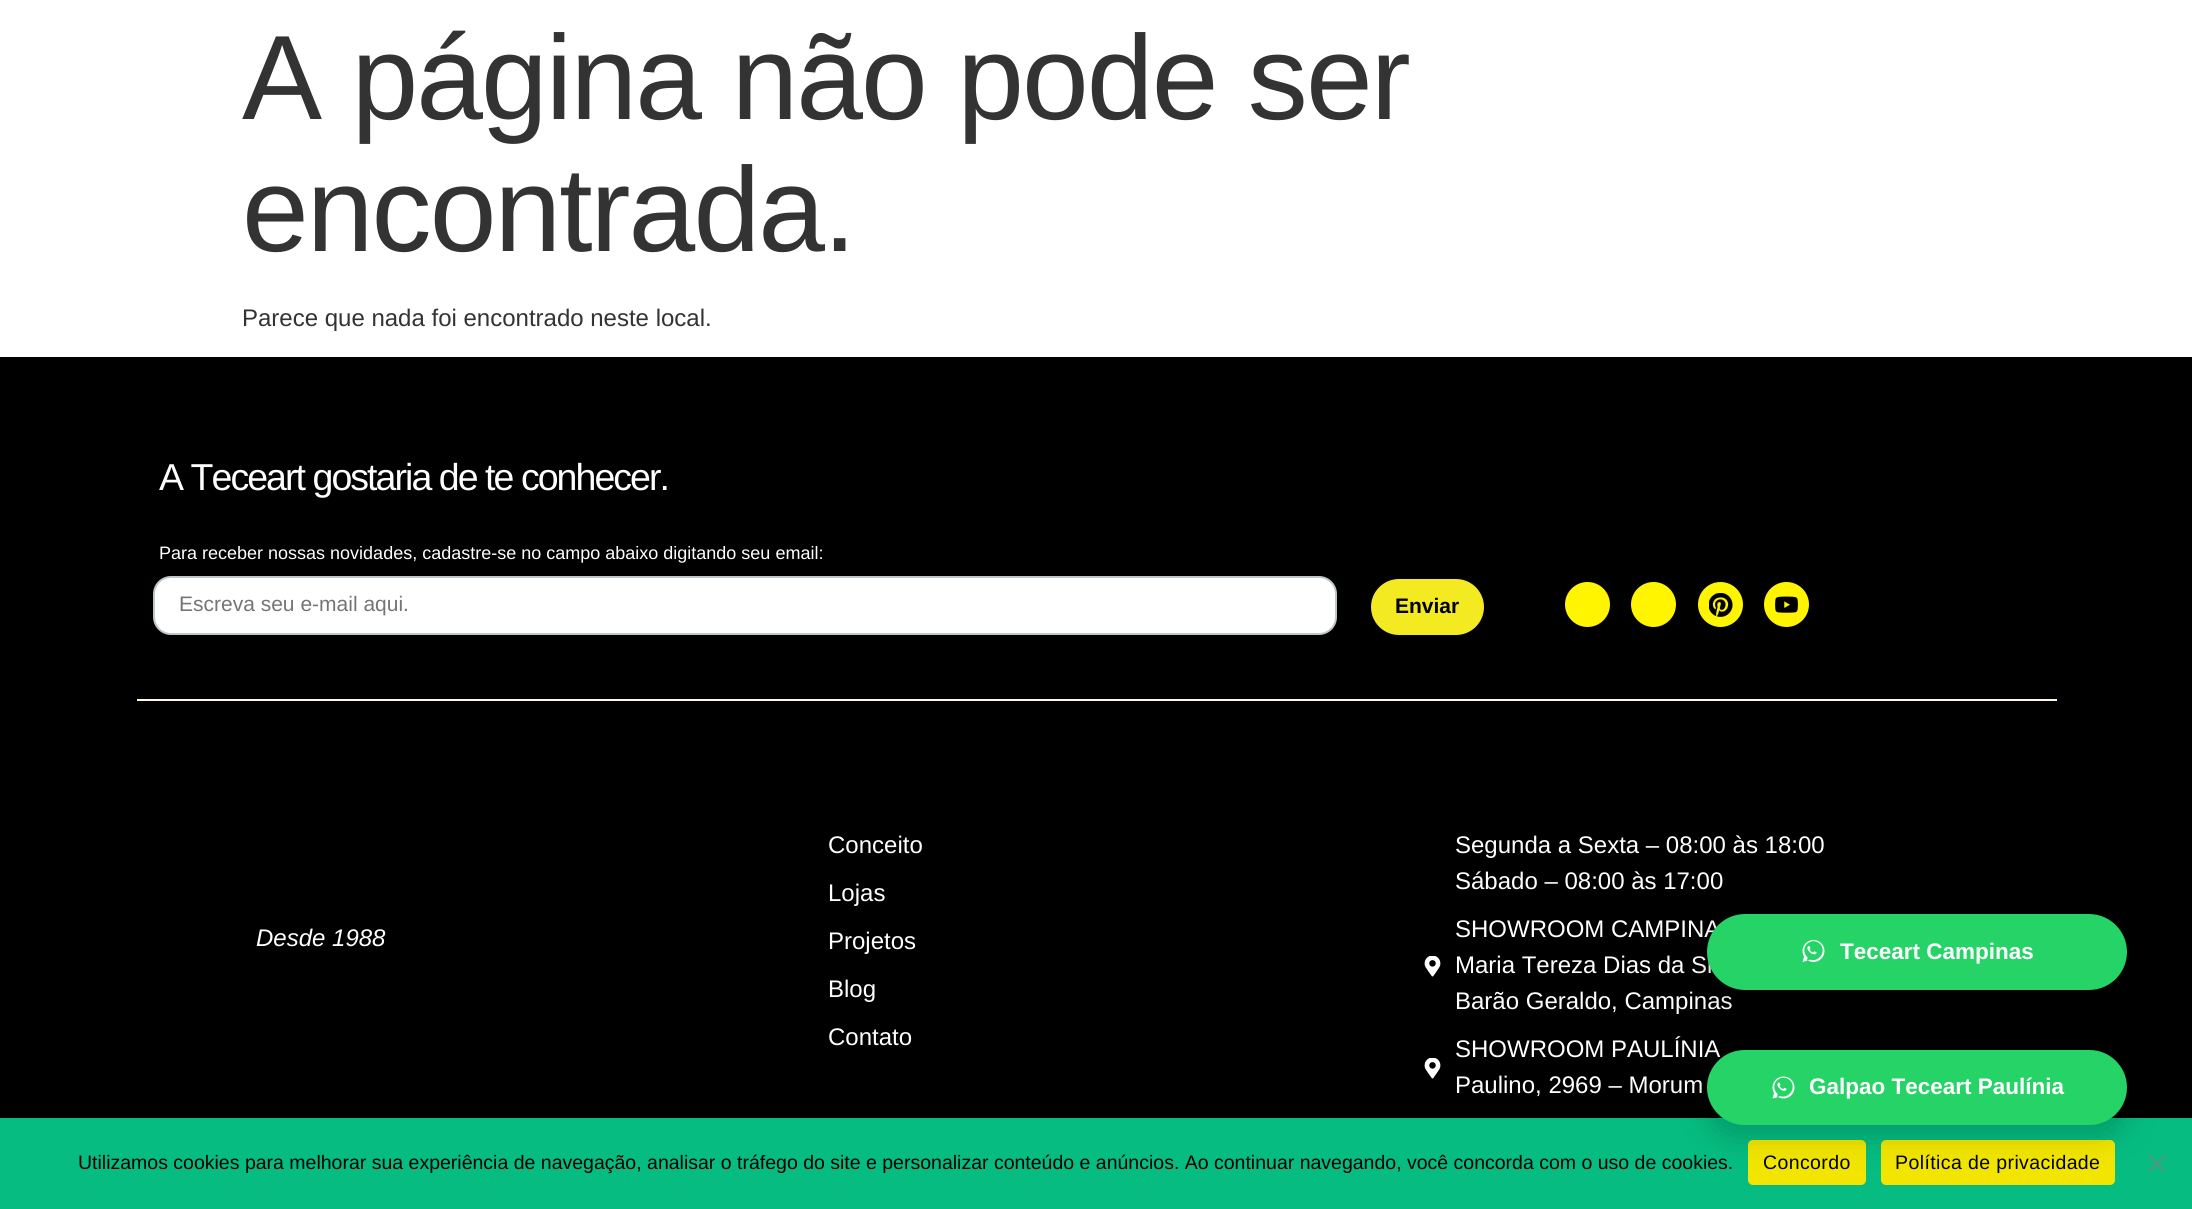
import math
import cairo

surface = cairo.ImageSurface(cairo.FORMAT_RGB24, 2192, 1209)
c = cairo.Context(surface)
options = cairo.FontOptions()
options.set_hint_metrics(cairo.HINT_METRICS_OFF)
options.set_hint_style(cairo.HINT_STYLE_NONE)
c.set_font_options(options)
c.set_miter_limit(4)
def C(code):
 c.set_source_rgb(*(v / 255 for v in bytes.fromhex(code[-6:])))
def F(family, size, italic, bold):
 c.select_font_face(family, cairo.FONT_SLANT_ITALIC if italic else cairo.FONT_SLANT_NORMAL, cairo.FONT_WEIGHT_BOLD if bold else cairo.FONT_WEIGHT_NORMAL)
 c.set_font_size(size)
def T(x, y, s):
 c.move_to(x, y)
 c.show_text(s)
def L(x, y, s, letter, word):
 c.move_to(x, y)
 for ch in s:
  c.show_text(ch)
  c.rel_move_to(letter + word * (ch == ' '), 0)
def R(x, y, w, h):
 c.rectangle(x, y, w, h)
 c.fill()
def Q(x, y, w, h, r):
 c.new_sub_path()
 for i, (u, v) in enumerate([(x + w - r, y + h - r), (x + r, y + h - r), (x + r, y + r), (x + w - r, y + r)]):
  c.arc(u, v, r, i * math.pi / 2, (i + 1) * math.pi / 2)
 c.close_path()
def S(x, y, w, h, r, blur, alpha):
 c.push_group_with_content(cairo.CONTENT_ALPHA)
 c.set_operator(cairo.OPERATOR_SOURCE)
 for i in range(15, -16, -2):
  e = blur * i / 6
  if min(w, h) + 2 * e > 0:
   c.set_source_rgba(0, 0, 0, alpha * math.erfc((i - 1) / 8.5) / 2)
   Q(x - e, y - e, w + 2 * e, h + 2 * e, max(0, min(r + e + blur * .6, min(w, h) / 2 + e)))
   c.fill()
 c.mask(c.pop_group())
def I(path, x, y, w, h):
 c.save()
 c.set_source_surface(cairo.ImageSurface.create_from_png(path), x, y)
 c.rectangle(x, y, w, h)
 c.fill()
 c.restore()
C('ffffff')
c.paint()
F('Liberation Sans',120,0,0)
C('333333')
L(242,119,'A página não pode ser',-1.95,0)
L(242,251,'encontrada.',-1.95,0)
F('Liberation Sans',24,0,0)
T(242,326,'Parece que nada foi encontrado neste local.')
C('000000')
R(0,357,2192,761)
F('Liberation Sans',37.5,0,0)
C('ffffff')
L(159,490,'A Teceart gostaria de te conhecer.',-1.95,0)
F('Liberation Sans',18,0,0)
T(159,559,'Para receber nossas novidades, cadastre-se no campo abaixo digitando seu email:')
C('fff5e2')
R(137,699,1920,2)
C('ffffff')
Q(154,577,1182,57,17)
c.fill_preserve()
C('bec6ca')
c.stroke()
F('Liberation Sans',21,0,0)
C('757575')
T(179,611,'Escreva seu e-mail aqui.')
C('f3ea22')
Q(1371,579,113,56,28)
c.fill()
F('Liberation Sans',21,0,1)
C('000000')
T(1395,613,'Enviar')
C('fff500')
c.new_path()
c.arc(1587.5,604.5,22.5,0,2 * math.pi)
c.fill()
c.arc(1653.5,604.5,22.5,0,2 * math.pi)
c.fill()
c.arc(1720.5,604.5,22.5,0,2 * math.pi)
c.fill()
I('1.png',1709,593,24,24)
c.arc(1786.5,604.5,22.5,0,2 * math.pi)
c.fill()
I('2.png',1775,596,23,17)
F('Liberation Sans',24,1,0)
C('ffffff')
T(256,946,'Desde 1988')
F('Liberation Sans',24,0,0)
T(828,853,'Conceito')
T(828,901,'Lojas')
T(828,949,'Projetos')
T(828,997,'Blog')
T(828,1045,'Contato')
T(1455,853,'Segunda a Sexta – 08:00 às 18:00')
T(1455,889,'Sábado – 08:00 às 17:00')
I('3.png',1424,956,17,21)
T(1455,937,'SHOWROOM CAMPINA')
T(1455,973,'Maria Tereza Dias da Si')
T(1455,1009,'Barão Geraldo, Campinas')
I('3.png',1424,1058,17,21)
T(1455,1057,'SHOWROOM PAULÍNIA')
T(1455,1093,'Paulino, 2969 – Morum')
C('000000')
S(1707,926,420,76,38,15,.18)
C('25d366')
Q(1707,914,420,76,38)
c.fill()
I('4.png',1802,940,23,22)
F('Liberation Sans',22.5,0,1)
C('ffffff')
T(1840,959,'Teceart Campinas')
C('06bc80')
R(0,1118,2192,91)
C('f2e600')
Q(1748,1140,118,45,5)
c.fill()
Q(1881,1140,234,45,5)
c.fill()
C('439e80')
c.new_path()
c.move_to(2164,1154.5)
c.line_to(2166,1156.5)
c.line_to(2150,1172.5)
c.line_to(2148,1170.5)
c.close_path()
c.fill()
c.new_path()
c.move_to(2148,1156.5)
c.line_to(2150,1154.5)
c.line_to(2166,1170.5)
c.line_to(2164,1172.5)
c.close_path()
c.fill()
C('000000')
S(1707,1062,420,75,37.5,15,.18)
C('25d366')
Q(1707,1050,420,75,37.5)
c.fill()
I('5.png',1772,1076,23,23)
C('ffffff')
T(1809,1094,'Galpao Teceart Paulínia')
F('Liberation Sans',19.5,0,0)
C('000000')
T(78,1169,'Utilizamos cookies para melhorar sua experiência de navegação, analisar o tráfego do site e personalizar conteúdo e anúncios. Ao continuar navegando, você concorda com o uso de cookies.')
L(1763,1169,'Concordo',.4,0)
L(1895,1169,'Política de privacidade',.4,0)
surface.write_to_png('o.png')
